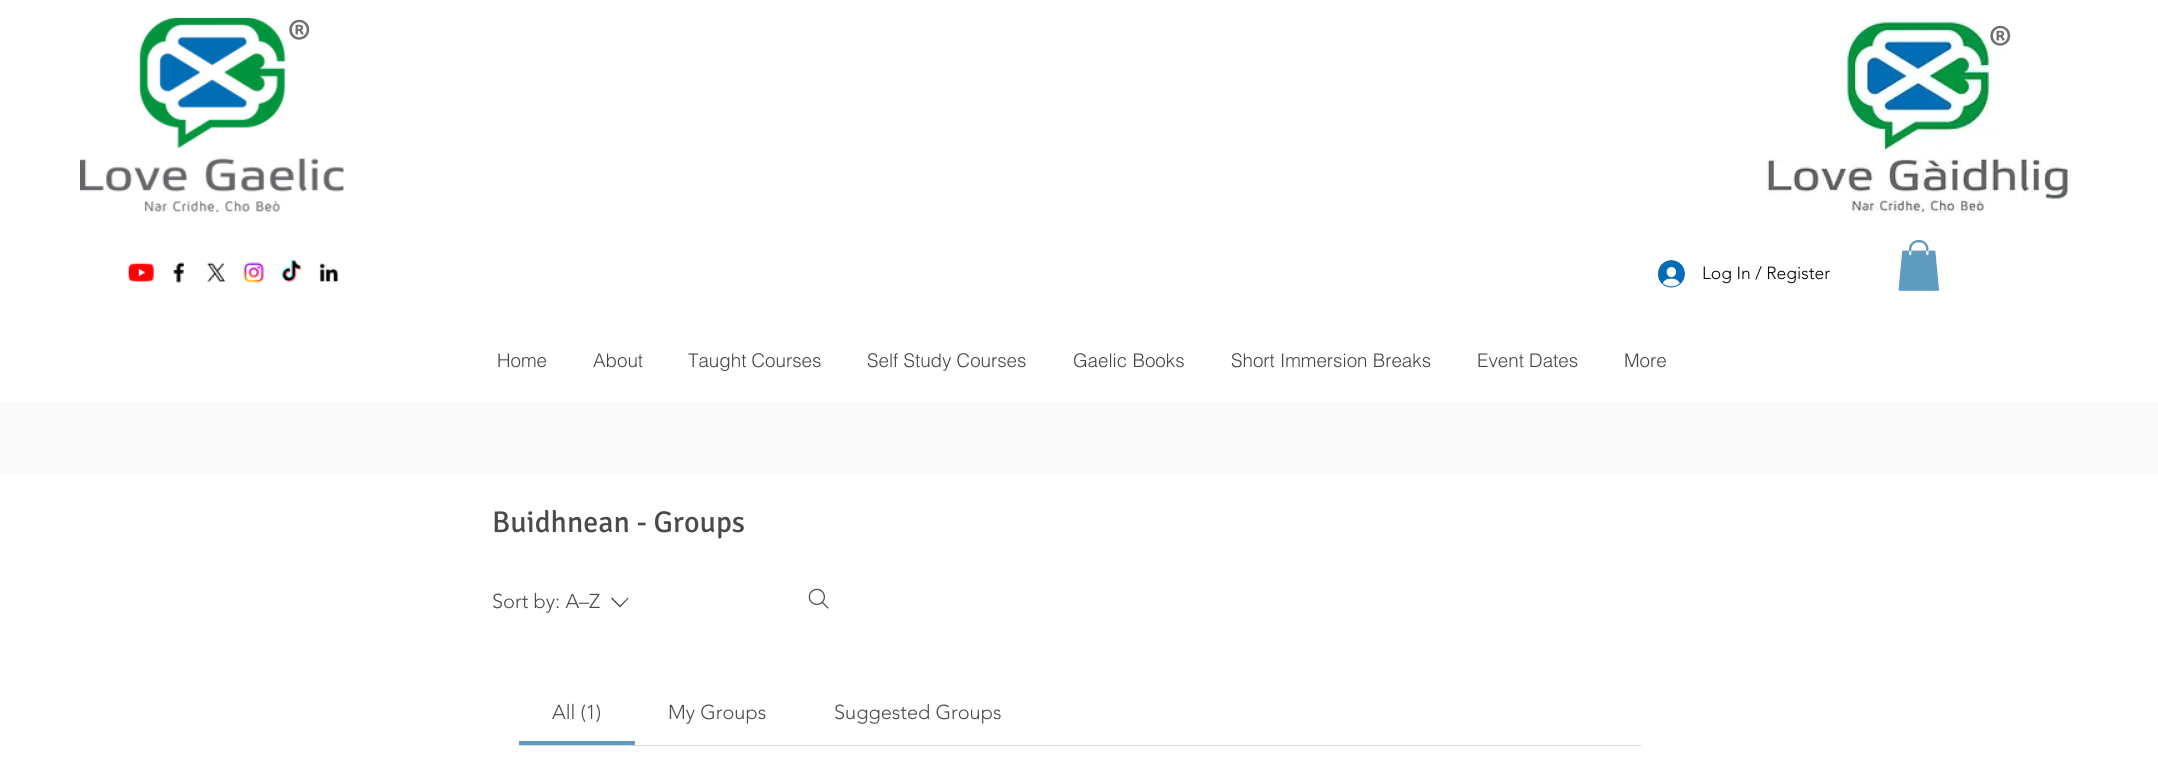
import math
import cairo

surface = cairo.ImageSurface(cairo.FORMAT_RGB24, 2158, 768)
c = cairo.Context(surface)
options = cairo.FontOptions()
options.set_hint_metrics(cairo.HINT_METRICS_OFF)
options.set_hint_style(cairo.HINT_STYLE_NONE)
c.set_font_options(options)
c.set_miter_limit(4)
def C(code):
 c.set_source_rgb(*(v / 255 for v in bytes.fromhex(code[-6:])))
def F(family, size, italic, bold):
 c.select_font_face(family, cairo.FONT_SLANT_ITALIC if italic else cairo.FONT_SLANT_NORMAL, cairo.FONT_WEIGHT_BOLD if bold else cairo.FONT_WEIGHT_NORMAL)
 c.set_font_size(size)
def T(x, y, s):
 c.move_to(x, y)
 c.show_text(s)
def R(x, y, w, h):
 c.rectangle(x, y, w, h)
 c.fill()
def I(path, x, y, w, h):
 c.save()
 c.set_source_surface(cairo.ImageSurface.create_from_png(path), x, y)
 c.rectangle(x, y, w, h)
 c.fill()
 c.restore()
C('ffffff')
c.paint()
I('1.png',80,17,264,196)
F('Signika',38,0,0)
C('717070')
T(288,48,'®')
I('2.png',128,262,26,21)
I('3.png',173,262,12,21)
I('4.png',207,262,19,21)
I('5.png',243,262,21,21)
I('6.png',281,260,21,23)
I('7.png',319,263,20,19)
I('8.png',1767,19,304,195)
T(1989,54,'®')
I('9.png',1658,260,27,28)
F('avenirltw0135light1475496 Light',17.5,0,0)
C('000000')
T(1702,279,'Log In / Register')
I('10.png',1898,240,41,51)
F('helvetica Light',18.75,0,0)
C('444444')
T(497,367,'Home')
T(593,367,'About')
T(688,367,'Taught Courses')
T(867,367,'Self Study Courses')
T(1073,367,'Gaelic Books')
T(1231,367,'Short Immersion Breaks')
T(1477,367,'Event Dates')
T(1624,367,'More')
C('fafafa')
R(0,403,2158,70)
F('Signika',30,0,0)
C('4a4a4a')
T(492,532,'Buidhnean - Groups')
F('avenirltw0135light1475496 Light',20,0,0)
T(492,608,'Sort by: A–Z')
c.set_fill_rule(cairo.FILL_RULE_EVEN_ODD)
c.new_path()
c.move_to(628,597.5)
c.line_to(628.5,598.5)
c.line_to(620,607.5)
c.line_to(611,598.5)
c.line_to(612,597.5)
c.line_to(620,605.5)
c.close_path()
c.fill()
I('11.png',808,588,21,21)
C('dbdbdb')
R(519,745,1122,1)
C('5f9abf')
R(519,741,116,4)
C('4a4a4a')
T(552,719,'All (1)')
T(668,719,'My Groups')
T(834,719,'Suggested Groups')
surface.write_to_png('o.png')
